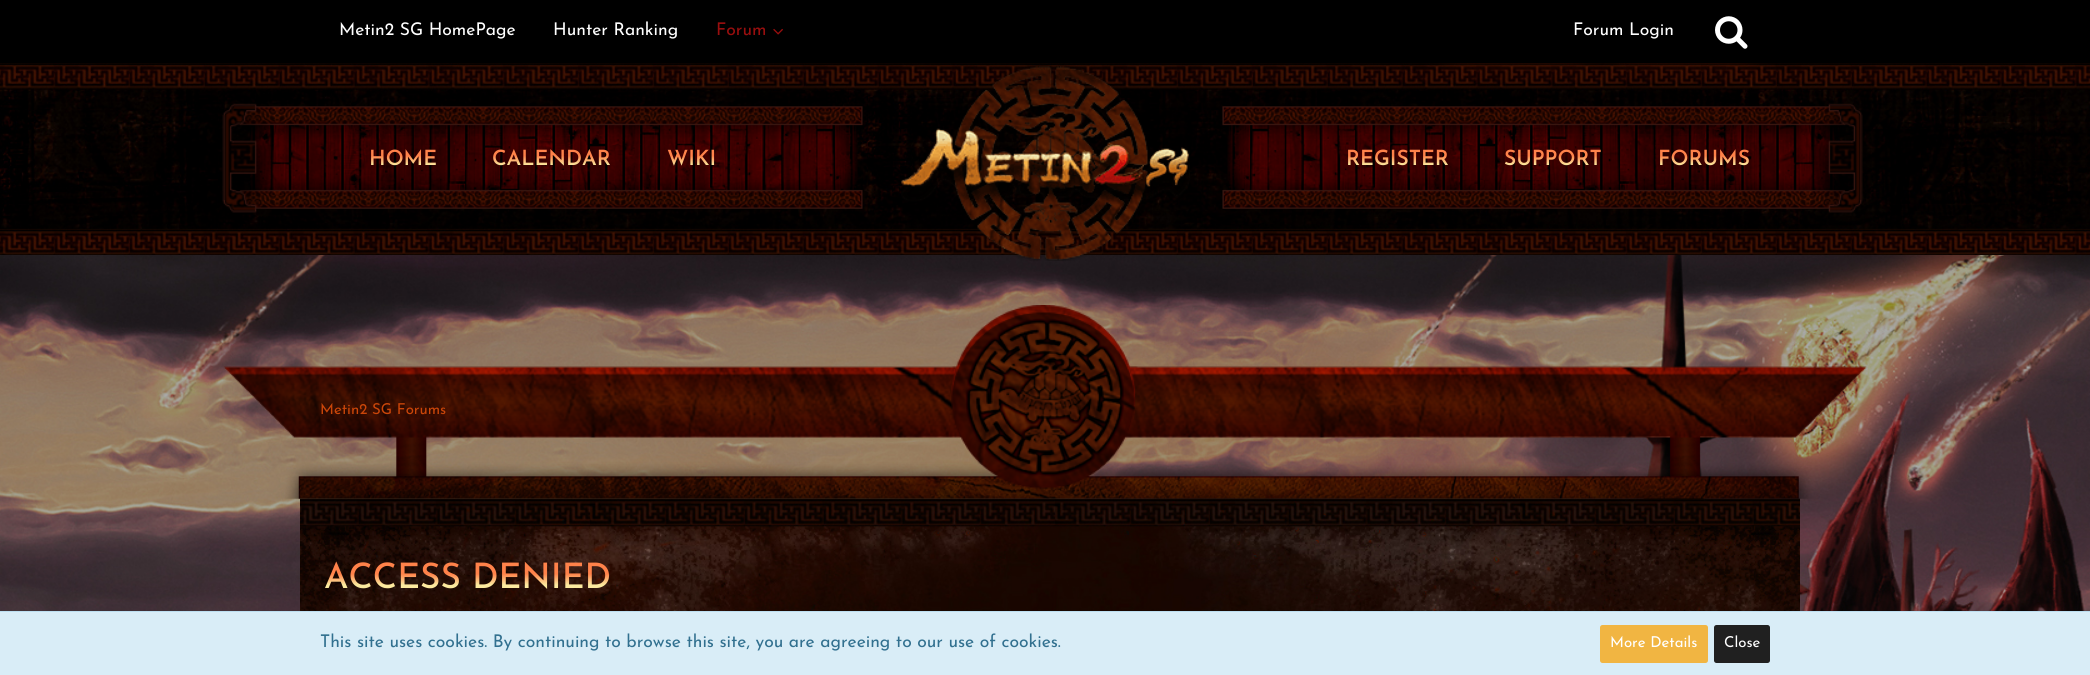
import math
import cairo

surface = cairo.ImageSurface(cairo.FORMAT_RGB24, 2090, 675)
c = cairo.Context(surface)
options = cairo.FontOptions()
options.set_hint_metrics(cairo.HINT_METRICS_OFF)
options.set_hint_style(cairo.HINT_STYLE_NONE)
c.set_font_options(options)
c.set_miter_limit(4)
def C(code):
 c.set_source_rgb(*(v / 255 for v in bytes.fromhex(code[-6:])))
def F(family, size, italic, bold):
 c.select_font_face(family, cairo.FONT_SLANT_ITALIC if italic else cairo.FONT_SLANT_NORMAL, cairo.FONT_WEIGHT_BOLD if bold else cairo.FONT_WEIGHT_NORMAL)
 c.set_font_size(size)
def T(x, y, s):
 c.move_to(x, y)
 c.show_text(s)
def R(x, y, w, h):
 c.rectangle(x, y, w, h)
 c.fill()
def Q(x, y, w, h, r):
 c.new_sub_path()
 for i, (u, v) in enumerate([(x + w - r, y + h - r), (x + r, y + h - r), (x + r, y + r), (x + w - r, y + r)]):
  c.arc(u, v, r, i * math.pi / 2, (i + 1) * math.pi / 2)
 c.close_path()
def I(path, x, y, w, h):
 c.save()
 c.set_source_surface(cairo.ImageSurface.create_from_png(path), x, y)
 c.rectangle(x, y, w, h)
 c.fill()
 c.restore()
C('ffffff')
c.paint()
I('1.png',0,255,2090,356)
I('2.png',0,63,2090,192)
C('000000')
R(0,0,2090,63)
F('Josefin Sans',17.5,0,0)
C('ffffff')
T(339,35,'Metin2 SG HomePage')
T(553,35,'Hunter Ranking')
C('990e0e')
T(716,35,'Forum')
I('3.png',773,28,10,7)
C('ffffff')
T(1573,35,'Forum Login')
I('4.png',1715,16,33,33)
I('5.png',900,65,290,196)
I('6.png',222,103,641,110)
F('Josefin Sans SemiBold',21,0,0)
gradient = cairo.LinearGradient(403,145,403,176)
gradient.add_color_stop_rgba(.35,1,0.51,0.29,1)
gradient.add_color_stop_rgba(.65,0.988,0.918,0.624,1)
c.set_source(gradient)
T(369,165,'HOME')
gradient = cairo.LinearGradient(552,145,552,176)
gradient.add_color_stop_rgba(.35,1,0.51,0.29,1)
gradient.add_color_stop_rgba(.65,0.988,0.918,0.624,1)
c.set_source(gradient)
T(492,165,'CALENDAR')
gradient = cairo.LinearGradient(691,145,691,176)
gradient.add_color_stop_rgba(.35,1,0.51,0.29,1)
gradient.add_color_stop_rgba(.65,0.988,0.918,0.624,1)
c.set_source(gradient)
T(667,165,'WIKI')
I('7.png',1222,103,650,110)
gradient = cairo.LinearGradient(1398,145,1398,176)
gradient.add_color_stop_rgba(.35,1,0.51,0.29,1)
gradient.add_color_stop_rgba(.65,0.988,0.918,0.624,1)
c.set_source(gradient)
T(1346,165,'REGISTER')
gradient = cairo.LinearGradient(1553,145,1553,176)
gradient.add_color_stop_rgba(.35,1,0.51,0.29,1)
gradient.add_color_stop_rgba(.65,0.988,0.918,0.624,1)
c.set_source(gradient)
T(1504,165,'SUPPORT')
gradient = cairo.LinearGradient(1703,145,1703,176)
gradient.add_color_stop_rgba(.35,1,0.51,0.29,1)
gradient.add_color_stop_rgba(.65,0.988,0.918,0.624,1)
c.set_source(gradient)
T(1658,165,'FORUMS')
I('8.png',223,305,1644,194)
F('Josefin Sans',15,0,0)
C('cb4609')
T(320,414,'Metin2 SG Forums')
I('9.png',300,498,1500,113)
F('Josefin Sans Medium',35,0,0)
gradient = cairo.LinearGradient(837,561,837,598)
gradient.add_color_stop_rgba(.35,1,0.51,0.29,1)
gradient.add_color_stop_rgba(.65,0.988,0.918,0.624,1)
c.set_source(gradient)
T(324,588,'ACCESS DENIED')
C('d9edf7')
R(0,612,2090,63)
C('bcdff1')
R(0,611,2090,1)
F('Josefin Sans',17.5,0,0)
C('31708f')
T(320,647,'This site uses cookies. By continuing to browse this site, you are agreeing to our use of cookies.')
C('f1b542')
Q(1600,625,108,38,2.5)
c.fill()
F('Josefin Sans',15,0,0)
C('ffffff')
T(1610,647,'More Details')
C('202020')
Q(1714,625,56,38,2.5)
c.fill()
C('ffffff')
T(1724,647,'Close')
surface.write_to_png('o.png')
